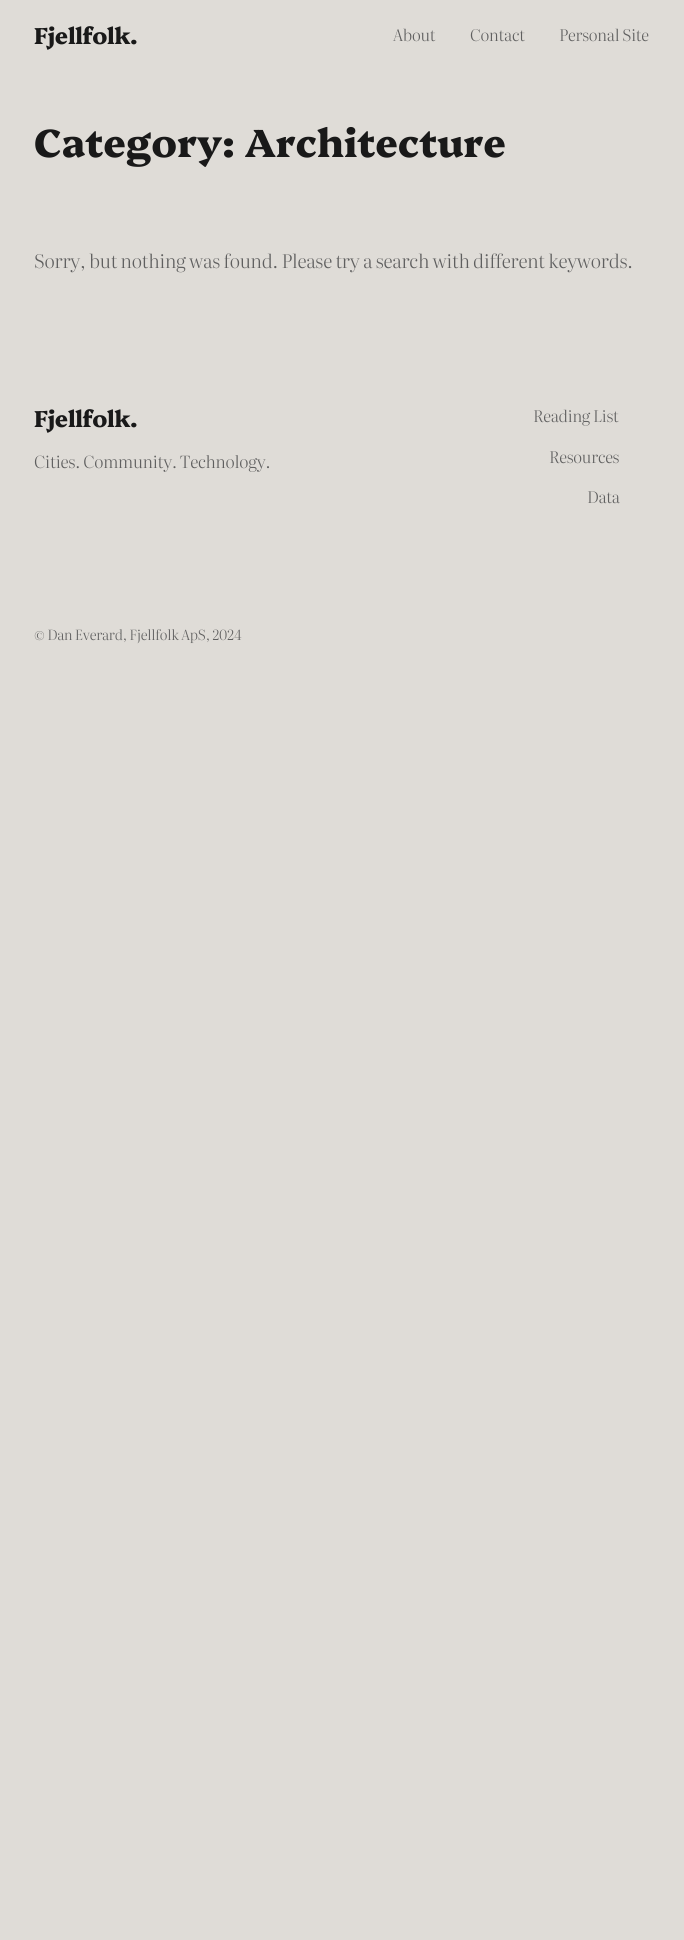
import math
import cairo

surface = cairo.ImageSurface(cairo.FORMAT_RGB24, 684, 1940)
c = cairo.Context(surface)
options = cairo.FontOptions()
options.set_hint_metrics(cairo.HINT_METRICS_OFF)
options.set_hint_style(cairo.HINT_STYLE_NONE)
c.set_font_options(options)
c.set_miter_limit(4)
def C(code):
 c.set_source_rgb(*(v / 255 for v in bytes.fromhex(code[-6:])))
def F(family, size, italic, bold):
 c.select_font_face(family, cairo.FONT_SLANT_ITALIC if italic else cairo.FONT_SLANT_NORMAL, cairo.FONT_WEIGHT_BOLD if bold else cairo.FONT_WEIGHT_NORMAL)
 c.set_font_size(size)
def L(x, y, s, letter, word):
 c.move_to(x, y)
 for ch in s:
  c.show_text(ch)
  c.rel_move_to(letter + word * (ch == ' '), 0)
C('dfdcd7')
c.paint()
F('Platypi ExtraBold',23,0,0)
C('191919')
L(34,44,'Fjellfolk.',-.5,0)
F('Literata Light',16,0,0)
C('5f5f5f')
L(393,41,'About',-.25,0)
L(470,41,'Contact',-.25,0)
L(559,41,'Personal Site',-.25,0)
F('Platypi ExtraBold',39.25,0,0)
C('191919')
L(34,157,'Category: Architecture',-.1,0)
F('Literata Light',18.7,0,0)
C('5f5f5f')
L(34,268,'Sorry, but nothing was found. Please try a search with different keywords.',-.25,0)
F('Platypi ExtraBold',23,0,0)
C('191919')
L(34,427,'Fjellfolk.',-.5,0)
F('Literata Light',16.75,0,0)
C('5f5f5f')
L(34,468,'Cities. Community. Technology.',-.25,0)
F('Literata Light',16,0,0)
L(533,422,'Reading List',-.25,0)
L(549,463,'Resources',-.25,0)
L(587,503,'Data',-.25,0)
F('Literata Light',14,0,0)
L(34,640,'© Dan Everard, Fjellfolk ApS, 2024',-.25,0)
surface.write_to_png('o.png')
